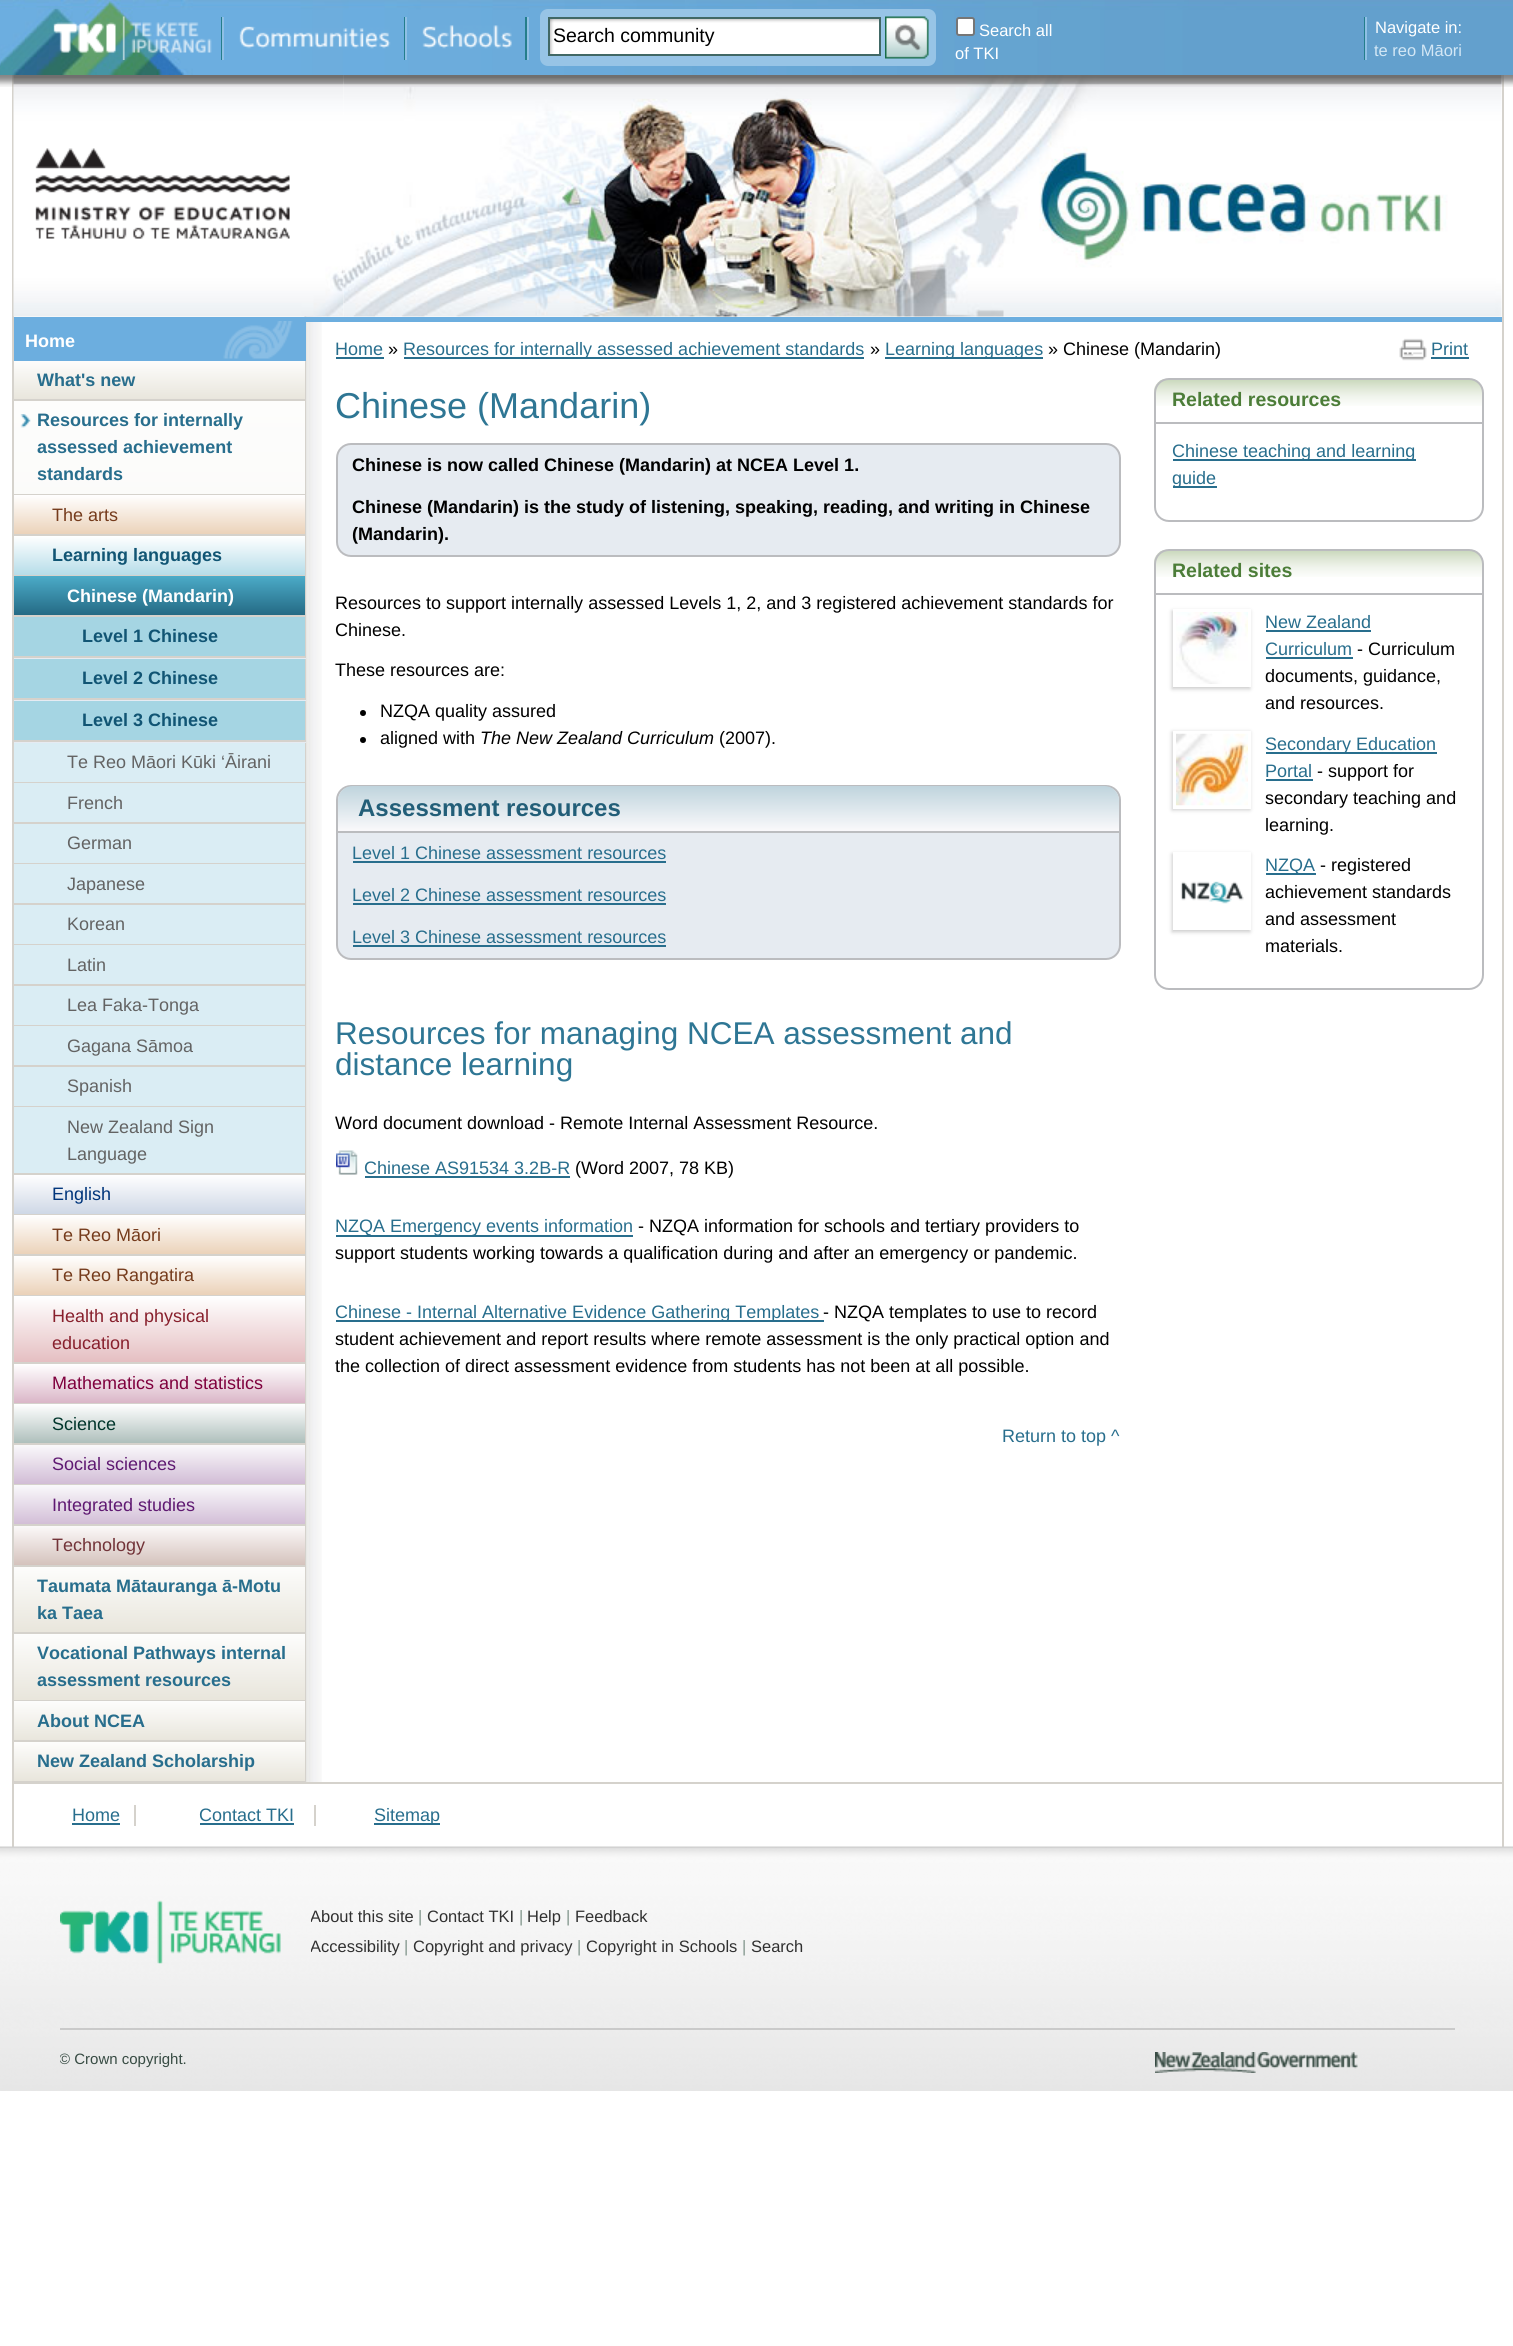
import math
import cairo

surface = cairo.ImageSurface(cairo.FORMAT_RGB24, 1513, 2346)
c = cairo.Context(surface)
options = cairo.FontOptions()
options.set_hint_metrics(cairo.HINT_METRICS_OFF)
options.set_hint_style(cairo.HINT_STYLE_NONE)
c.set_font_options(options)
c.set_miter_limit(4)
def C(code):
 c.set_source_rgb(*(v / 255 for v in bytes.fromhex(code[-6:])))
def F(family, size, italic, bold):
 c.select_font_face(family, cairo.FONT_SLANT_ITALIC if italic else cairo.FONT_SLANT_NORMAL, cairo.FONT_WEIGHT_BOLD if bold else cairo.FONT_WEIGHT_NORMAL)
 c.set_font_size(size)
def T(x, y, s):
 c.move_to(x, y)
 c.show_text(s)
def R(x, y, w, h):
 c.rectangle(x, y, w, h)
 c.fill()
def Q(x, y, w, h, r):
 c.new_sub_path()
 for i, (u, v) in enumerate([(x + w - r, y + h - r), (x + r, y + h - r), (x + r, y + r), (x + w - r, y + r)]):
  c.arc(u, v, r, i * math.pi / 2, (i + 1) * math.pi / 2)
 c.close_path()
def S(x, y, w, h, r, blur, alpha):
 c.push_group_with_content(cairo.CONTENT_ALPHA)
 c.set_operator(cairo.OPERATOR_SOURCE)
 for i in range(15, -16, -2):
  e = blur * i / 6
  if min(w, h) + 2 * e > 0:
   c.set_source_rgba(0, 0, 0, alpha * math.erfc((i - 1) / 8.5) / 2)
   Q(x - e, y - e, w + 2 * e, h + 2 * e, max(0, min(r + e + blur * .6, min(w, h) / 2 + e)))
   c.fill()
 c.mask(c.pop_group())
def I(path, x, y, w, h):
 c.save()
 c.set_source_surface(cairo.ImageSurface.create_from_png(path), x, y)
 c.rectangle(x, y, w, h)
 c.fill()
 c.restore()
C('ffffff')
c.paint()
I('1.png',0,0,1513,75)
C('247e8b')
R(221,17,1,43)
I('2.png',53,16,159,44)
R(404,17,1,43)
C('8fc0e4')
R(222,17,2,43)
I('3.png',239,26,152,23)
C('247e8b')
R(525,17,2,43)
C('8fc0e4')
R(405,17,2,43)
I('4.png',422,25,90,24)
R(527,17,2,43)
C('97c4e6')
Q(540,9,396,57,8)
c.fill()
C('ffffff')
R(553,22,326,32)
I('5.png',550,19,329,35)
c.rectangle(549,18,331,37)
C('416865')
c.stroke()
F('Liberation Sans',19.5,0,0)
C('000000')
T(553,42,'Search community')
I('6.png',885,16,44,43)
C('ffffff')
Q(957,18,17,17,2)
c.fill_preserve()
C('767676')
c.stroke()
F('Liberation Sans',16.5,0,0)
C('ffffff')
T(979,36,'Search all')
T(955,59,'of TKI')
C('247e8b')
R(1364,17,1,43)
C('8fc0e4')
R(1365,17,2,43)
C('ffffff')
T(1375,33,'Navigate in:')
C('d3e7f5')
T(1374,56,'te reo Māori')
C('d5d2cc')
R(1502,75,2,1772)
R(12,75,2,1772)
I('8.png',304,316,18,1466)
I('9.png',13,75,331,242)
I('10.png',343,75,1159,242)
I('7.png',0,75,1513,12)
C('6caedf')
R(14,317,1488,5)
C('d5d2cc')
R(305,360,1,297)
C('6caedf')
R(14,322,292,39)
I('11.png',223,321,70,38)
F('Liberation Sans',18,0,1)
C('ffffff')
T(25,347,'Home')
gradient = cairo.LinearGradient(160,360,160,401)
gradient.add_color_stop_rgba(0,0.992,0.992,0.988,1)
gradient.add_color_stop_rgba(1,0.91,0.898,0.859,1)
c.set_source(gradient)
R(14,361,291,38)
C('d5d2cc')
R(14,399,292,2)
C('286e8d')
T(37,386,'What\'s new')
gradient = cairo.LinearGradient(160,401,160,1566)
gradient.add_color_stop_rgba(0,0.992,0.992,0.988,1)
gradient.add_color_stop_rgba(1,0.91,0.898,0.859,1)
c.set_source(gradient)
R(14,401,291,93)
I('12.png',20,414,11,14)
C('d5d2cc')
R(14,494,292,1)
C('286e8d')
T(37,426,'Resources for internally')
T(37,453,'assessed achievement')
T(37,480,'standards')
gradient = cairo.LinearGradient(160,495,160,536)
gradient.add_color_stop_rgba(0,1,1,1,1)
gradient.add_color_stop_rgba(1,0.918,0.816,0.714,1)
c.set_source(gradient)
R(14,495,291,39)
C('d5d2cc')
R(14,534,292,2)
F('Liberation Sans',18,0,0)
C('753b1c')
T(52,521,'The arts')
gradient = cairo.LinearGradient(160,536,160,576)
gradient.add_color_stop_rgba(0,1,1,1,1)
gradient.add_color_stop_rgba(1,0.706,0.863,0.91,1)
c.set_source(gradient)
R(14,536,291,39)
C('d5d2cc')
R(14,575,292,1)
F('Liberation Sans',18,0,1)
C('115574')
T(52,561,'Learning languages')
gradient = cairo.LinearGradient(160,576,160,617)
gradient.add_color_stop_rgba(0,0.298,0.671,0.784,1)
gradient.add_color_stop_rgba(1,0.137,0.404,0.506,1)
c.set_source(gradient)
R(14,576,291,39)
C('d5d2cc')
R(14,615,292,2)
C('ffffff')
T(67,602,'Chinese (Mandarin)')
C('a5d5e3')
R(14,617,291,39)
C('e6ebf2')
R(14,658,292,1)
C('d5d2cc')
R(14,656,292,2)
C('115574')
T(82,642,'Level 1 Chinese')
C('a5d5e3')
R(14,659,291,39)
C('e6ebf2')
R(14,700,292,1)
C('d5d2cc')
R(305,659,1,40)
R(14,698,292,2)
C('115574')
T(82,684,'Level 2 Chinese')
C('a5d5e3')
R(14,701,291,39)
C('e6ebf2')
R(14,742,292,1)
C('d5d2cc')
R(305,701,1,40)
R(14,740,292,2)
C('115574')
T(82,726,'Level 3 Chinese')
C('daedf4')
R(14,743,291,39)
C('d5d2cc')
R(305,743,1,823)
R(14,782,292,1)
F('Liberation Sans',18,0,0)
C('636363')
T(67,768,'Te Reo Māori Kūki ‘Āirani')
C('daedf4')
R(14,783,291,39)
C('d5d2cc')
R(14,822,292,2)
C('636363')
T(67,809,'French')
C('daedf4')
R(14,824,291,39)
C('d5d2cc')
R(14,863,292,1)
C('636363')
T(67,849,'German')
C('daedf4')
R(14,864,291,39)
C('d5d2cc')
R(14,903,292,2)
C('636363')
T(67,890,'Japanese')
C('daedf4')
R(14,905,291,39)
C('d5d2cc')
R(14,944,292,1)
C('636363')
T(67,930,'Korean')
C('daedf4')
R(14,945,291,39)
C('d5d2cc')
R(14,984,292,2)
C('636363')
T(67,971,'Latin')
C('daedf4')
R(14,986,291,39)
C('d5d2cc')
R(14,1025,292,1)
C('636363')
T(67,1011,'Lea Faka-Tonga')
C('daedf4')
R(14,1026,291,39)
C('d5d2cc')
R(14,1065,292,2)
C('636363')
T(67,1052,'Gagana Sāmoa')
C('daedf4')
R(14,1067,291,39)
C('d5d2cc')
R(14,1106,292,1)
C('636363')
T(67,1092,'Spanish')
C('daedf4')
R(14,1107,291,66)
C('d5d2cc')
R(14,1173,292,2)
C('636363')
T(67,1133,'New Zealand Sign')
T(67,1160,'Language')
gradient = cairo.LinearGradient(160,1175,160,1215)
gradient.add_color_stop_rgba(0,1,1,1,1)
gradient.add_color_stop_rgba(1,0.804,0.843,0.898,1)
c.set_source(gradient)
R(14,1175,291,39)
C('d5d2cc')
R(14,1214,292,1)
C('00357b')
T(52,1200,'English')
gradient = cairo.LinearGradient(160,1215,160,1256)
gradient.add_color_stop_rgba(0,1,1,1,1)
gradient.add_color_stop_rgba(1,0.918,0.816,0.714,1)
c.set_source(gradient)
R(14,1215,291,39)
C('d5d2cc')
R(14,1254,292,2)
C('753b1c')
T(52,1241,'Te Reo Māori')
gradient = cairo.LinearGradient(160,1256,160,1296)
gradient.add_color_stop_rgba(0,1,1,1,1)
gradient.add_color_stop_rgba(1,0.918,0.816,0.714,1)
c.set_source(gradient)
R(14,1256,291,39)
C('d5d2cc')
R(14,1295,292,1)
C('753b1c')
T(52,1281,'Te Reo Rangatira')
gradient = cairo.LinearGradient(160,1296,160,1364)
gradient.add_color_stop_rgba(0,1,1,1,1)
gradient.add_color_stop_rgba(1,0.894,0.741,0.753,1)
c.set_source(gradient)
R(14,1296,291,66)
C('d5d2cc')
R(14,1362,292,2)
C('88202d')
T(52,1322,'Health and physical')
T(52,1349,'education')
gradient = cairo.LinearGradient(160,1364,160,1404)
gradient.add_color_stop_rgba(0,1,1,1,1)
gradient.add_color_stop_rgba(1,0.851,0.706,0.776,1)
c.set_source(gradient)
R(14,1364,291,39)
C('d5d2cc')
R(14,1403,292,1)
C('7f003d')
T(52,1389,'Mathematics and statistics')
gradient = cairo.LinearGradient(160,1404,160,1445)
gradient.add_color_stop_rgba(0,1,1,1,1)
gradient.add_color_stop_rgba(1,0.667,0.737,0.722,1)
c.set_source(gradient)
R(14,1404,291,39)
C('d5d2cc')
R(14,1443,292,2)
C('00352b')
T(52,1430,'Science')
gradient = cairo.LinearGradient(160,1445,160,1485)
gradient.add_color_stop_rgba(0,0.98,0.976,0.984,1)
gradient.add_color_stop_rgba(1,0.816,0.733,0.835,1)
c.set_source(gradient)
R(14,1445,291,39)
C('d5d2cc')
R(14,1484,292,1)
C('5f1972')
T(52,1470,'Social sciences')
gradient = cairo.LinearGradient(160,1485,160,1526)
gradient.add_color_stop_rgba(0,0.98,0.976,0.984,1)
gradient.add_color_stop_rgba(1,0.816,0.733,0.835,1)
c.set_source(gradient)
R(14,1485,291,39)
C('d5d2cc')
R(14,1524,292,2)
C('5f1972')
T(52,1511,'Integrated studies')
gradient = cairo.LinearGradient(160,1526,160,1566)
gradient.add_color_stop_rgba(0,0.984,0.976,0.976,1)
gradient.add_color_stop_rgba(1,0.831,0.757,0.733,1)
c.set_source(gradient)
R(14,1526,291,39)
C('d5d2cc')
R(305,1566,1,216)
R(14,1565,292,2)
C('723338')
T(52,1551,'Technology')
gradient = cairo.LinearGradient(160,1566,160,1634)
gradient.add_color_stop_rgba(0,0.992,0.992,0.988,1)
gradient.add_color_stop_rgba(1,0.91,0.898,0.859,1)
c.set_source(gradient)
R(14,1567,291,65)
C('d5d2cc')
R(14,1632,292,2)
F('Liberation Sans',18,0,1)
C('286e8d')
T(37,1592,'Taumata Mātauranga ā-Motu')
T(37,1619,'ka Taea')
gradient = cairo.LinearGradient(160,1634,160,1701)
gradient.add_color_stop_rgba(0,0.992,0.992,0.988,1)
gradient.add_color_stop_rgba(1,0.91,0.898,0.859,1)
c.set_source(gradient)
R(14,1634,291,66)
C('d5d2cc')
R(14,1700,292,1)
C('286e8d')
T(37,1659,'Vocational Pathways internal')
T(37,1686,'assessment resources')
gradient = cairo.LinearGradient(160,1701,160,1742)
gradient.add_color_stop_rgba(0,0.992,0.992,0.988,1)
gradient.add_color_stop_rgba(1,0.91,0.898,0.859,1)
c.set_source(gradient)
R(14,1701,291,39)
C('d5d2cc')
R(14,1740,292,2)
C('286e8d')
T(37,1727,'About NCEA')
gradient = cairo.LinearGradient(160,1742,160,1782)
gradient.add_color_stop_rgba(0,0.992,0.992,0.988,1)
gradient.add_color_stop_rgba(1,0.91,0.898,0.859,1)
c.set_source(gradient)
R(14,1742,291,39)
C('d5d2cc')
R(14,1781,292,1)
C('286e8d')
T(37,1767,'New Zealand Scholarship')
F('Liberation Sans',18,0,0)
T(335,355,'Home')
R(336,357,48,2)
C('000000')
T(388,355,'»')
C('286e8d')
R(404,357,460,2)
T(403,355,'Resources for internally assessed achievement standards')
C('000000')
T(870,355,'»')
C('286e8d')
R(885,357,158,2)
T(885,355,'Learning languages')
C('000000')
T(1048,355,'» Chinese (Mandarin)')
I('13.png',1399,338,28,23)
C('286e8d')
T(1431,355,'Print')
R(1431,357,38,2)
F('Liberation Sans',36,0,0)
C('2e7694')
T(335,418,'Chinese (Mandarin)')
C('e6ebf1')
Q(337,444,783,112,14)
c.fill_preserve()
C('bbbcbf')
c.stroke()
F('Liberation Sans',18,0,1)
C('000000')
T(352,471,'Chinese is now called Chinese (Mandarin) at NCEA Level 1.')
T(352,513,'Chinese (Mandarin) is the study of listening, speaking, reading, and writing in Chinese')
T(352,540,'(Mandarin).')
F('Liberation Sans',18,0,0)
T(335,609,'Resources to support internally assessed Levels 1, 2, and 3 registered achievement standards for')
T(335,636,'Chinese.')
T(335,676,'These resources are:')
c.new_path()
c.arc(363,713,3,0,2 * math.pi)
c.fill()
T(380,717,'NZQA quality assured')
c.new_path()
c.arc(363,740,3,0,2 * math.pi)
c.fill()
T(380,744,'aligned with')
F('Liberation Sans',18,1,0)
T(480,744,'The New Zealand Curriculum')
F('Liberation Sans',18,0,0)
T(719,744,'(2007).')
C('e6ebf1')
Q(337,786,783,173,14)
c.fill_preserve()
C('bbbcbf')
c.stroke()
gradient = cairo.LinearGradient(728,786,728,831)
gradient.add_color_stop_rgba(0,0.749,0.831,0.867,1)
gradient.add_color_stop_rgba(1,0.98,0.976,0.984,1)
c.set_source(gradient)
c.new_path()
c.move_to(353,786)
c.line_to(1104,786)
c.curve_to(1112.5,786,1119,792.5,1119,801)
c.line_to(1119,831)
c.line_to(338,831)
c.line_to(338,801)
c.curve_to(338,792.5,344.5,786,353,786)
c.close_path()
c.fill()
C('bbbcbf')
R(338,831,781,2)
F('Liberation Sans',24,0,1)
C('225e78')
T(358,816,'Assessment resources')
F('Liberation Sans',18,0,0)
C('286e8d')
T(352,859,'Level 1 Chinese assessment resources')
R(353,861,313,2)
T(352,901,'Level 2 Chinese assessment resources')
R(353,903,313,2)
T(352,943,'Level 3 Chinese assessment resources')
R(353,945,313,2)
F('Liberation Sans',31.5,0,0)
C('2e7694')
T(335,1044,'Resources for managing NCEA assessment and')
T(335,1075,'distance learning')
F('Liberation Sans',18,0,0)
C('000000')
T(335,1129,'Word document download - Remote Internal Assessment Resource.')
I('14.png',336,1150,22,25)
C('286e8d')
T(364,1174,'Chinese AS91534 3.2B-R')
R(365,1176,205,2)
C('000000')
T(575,1174,'(Word 2007, 78 KB)')
C('286e8d')
R(336,1235,297,2)
T(335,1232,'NZQA Emergency events information')
C('000000')
T(638,1232,'- NZQA information for schools and tertiary providers to')
T(335,1259,'support students working towards a qualification during and after an emergency or pandemic.')
C('286e8d')
R(336,1320,488,2)
T(335,1318,'Chinese - Internal Alternative Evidence Gathering Templates')
C('000000')
T(823,1318,'- NZQA templates to use to record')
T(335,1345,'student achievement and report results where remote assessment is the only practical option and')
T(335,1372,'the collection of direct assessment evidence from students has not been at all possible.')
C('286e8d')
T(1002,1442,'Return to top ^')
I('15.png',1154,379,329,27)
Q(1155,379,328,142,14)
C('bbbcbf')
c.stroke()
R(1155,422,327,2)
F('Liberation Sans',19.5,0,1)
C('4c7d38')
T(1172,406,'Related resources')
C('286e8d')
R(1173,459,243,2)
F('Liberation Sans',18,0,0)
T(1172,457,'Chinese teaching and learning')
R(1173,486,44,2)
T(1172,484,'guide')
I('16.png',1154,550,329,27)
Q(1155,550,328,439,14)
C('bbbcbf')
c.stroke()
R(1155,593,327,2)
F('Liberation Sans',19.5,0,1)
C('4c7d38')
T(1172,577,'Related sites')
c.save()
c.set_fill_rule(cairo.FILL_RULE_EVEN_ODD)
c.new_path()
c.move_to(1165,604)
c.line_to(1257,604)
c.line_to(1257,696)
c.line_to(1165,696)
c.close_path()
c.move_to(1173,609)
c.line_to(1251,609)
c.line_to(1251,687)
c.line_to(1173,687)
c.close_path()
c.clip()
C('cccccc')
S(1172,611,78,78,0,2,1)
c.restore()
I('17.png',1176,612,72,72)
F('Liberation Sans',18,0,0)
C('286e8d')
T(1265,628,'New Zealand')
R(1266,630,105,2)
T(1265,655,'Curriculum')
R(1266,657,87,2)
C('000000')
T(1357,655,'- Curriculum')
T(1265,682,'documents, guidance,')
T(1265,709,'and resources.')
C('cccccc')
S(1172,732,78,78,0,2,1)
C('ffffff')
R(1173,731,78,78)
I('18.png',1176,733,72,73)
C('286e8d')
R(1266,752,171,2)
T(1265,750,'Secondary Education')
T(1265,777,'Portal')
R(1266,779,47,2)
C('000000')
T(1317,777,'- support for')
T(1265,804,'secondary teaching and')
T(1265,831,'learning.')
c.save()
c.set_fill_rule(cairo.FILL_RULE_EVEN_ODD)
c.new_path()
c.move_to(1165,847)
c.line_to(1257,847)
c.line_to(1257,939)
c.line_to(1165,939)
c.close_path()
c.move_to(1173,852)
c.line_to(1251,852)
c.line_to(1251,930)
c.line_to(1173,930)
c.close_path()
c.clip()
C('cccccc')
S(1172,854,78,78,0,2,1)
c.restore()
I('19.png',1180,881,64,23)
C('286e8d')
R(1266,873,50,2)
T(1265,871,'NZQA')
C('000000')
T(1320,871,'- registered')
T(1265,898,'achievement standards')
T(1265,925,'and assessment')
T(1265,952,'materials.')
C('d5d2cc')
R(14,1782,1488,2)
C('286e8d')
T(72,1821,'Home')
C('d5d2cc')
R(134,1805,2,21)
C('286e8d')
R(72,1823,48,2)
T(199,1821,'Contact TKI')
C('d5d2cc')
R(314,1805,2,21)
C('286e8d')
R(200,1823,94,2)
R(374,1823,66,2)
T(374,1821,'Sitemap')
I('20.png',0,1846,1513,245)
I('21.png',60,1900,221,64)
c.save()
c.rectangle(311,1901,1144,60)
c.clip()
F('Liberation Sans',16.5,0,0)
C('303030')
T(310,1922,'About this site')
c.restore()
F('Liberation Sans',16.5,0,0)
C('84988e')
T(418,1922,'|')
C('303030')
T(427,1922,'Contact TKI')
C('84988e')
T(519,1922,'|')
C('303030')
T(527,1922,'Help')
C('84988e')
T(566,1922,'|')
C('303030')
T(575,1922,'Feedback')
c.save()
c.rectangle(311,1901,1144,60)
c.clip()
T(310,1952,'Accessibility')
c.restore()
C('84988e')
T(404,1952,'|')
C('303030')
T(413,1952,'Copyright and privacy')
C('84988e')
T(577,1952,'|')
C('303030')
T(586,1952,'Copyright in Schools')
C('84988e')
T(742,1952,'|')
C('303030')
T(751,1952,'Search')
C('cacaca')
R(60,2028,1395,2)
c.save()
c.rectangle(60,2030,1395,60)
c.clip()
F('Liberation Sans',15,0,0)
C('374b43')
T(59,2064,'© Crown copyright.')
c.restore()
I('22.png',1155,2052,203,21)
surface.write_to_png('o.png')
